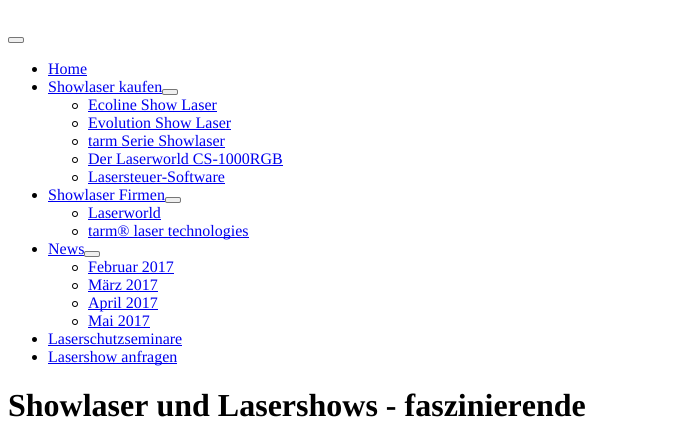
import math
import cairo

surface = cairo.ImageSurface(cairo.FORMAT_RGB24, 698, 426)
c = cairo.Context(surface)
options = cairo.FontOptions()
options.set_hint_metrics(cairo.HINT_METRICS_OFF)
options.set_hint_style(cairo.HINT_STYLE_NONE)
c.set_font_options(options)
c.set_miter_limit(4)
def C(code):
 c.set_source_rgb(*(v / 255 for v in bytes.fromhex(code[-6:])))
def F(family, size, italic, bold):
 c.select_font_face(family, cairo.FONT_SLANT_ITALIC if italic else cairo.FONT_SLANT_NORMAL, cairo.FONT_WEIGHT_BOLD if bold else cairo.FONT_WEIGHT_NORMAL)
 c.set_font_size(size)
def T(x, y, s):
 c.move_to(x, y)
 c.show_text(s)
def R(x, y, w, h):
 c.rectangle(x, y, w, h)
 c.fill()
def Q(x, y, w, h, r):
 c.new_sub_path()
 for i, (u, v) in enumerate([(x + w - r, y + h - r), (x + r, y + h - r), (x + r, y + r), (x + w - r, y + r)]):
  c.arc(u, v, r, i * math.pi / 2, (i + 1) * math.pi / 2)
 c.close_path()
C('ffffff')
c.paint()
C('efefef')
Q(8.5,37.5,15,5,1.5)
c.fill_preserve()
C('767676')
c.set_line_width(1)
c.stroke()
C('000000')
c.arc(34.5,69.5,2.5,0,2 * math.pi)
c.fill()
F('Liberation Serif',16,0,0)
C('0000ee')
T(48,74,'Home')
R(48,75,39,1)
C('000000')
c.new_path()
c.arc(34.5,87.5,2.5,0,2 * math.pi)
c.fill()
C('0000ee')
T(48,92,'Showlaser kaufen')
R(48,93,114,1)
C('efefef')
Q(162.5,89.5,15,5,1.5)
c.fill_preserve()
C('767676')
c.stroke()
c.arc(75,106,2.5,0,2 * math.pi)
C('000000')
c.stroke()
C('0000ee')
T(88,110,'Ecoline Show Laser')
R(88,111,129,1)
c.new_path()
c.arc(75,124,2.5,0,2 * math.pi)
C('000000')
c.stroke()
C('0000ee')
T(88,128,'Evolution Show Laser')
R(88,129,143,1)
c.new_path()
c.arc(75,142,2.5,0,2 * math.pi)
C('000000')
c.stroke()
C('0000ee')
T(88,146,'tarm Serie Showlaser')
R(88,147,137,1)
c.new_path()
c.arc(75,160,2.5,0,2 * math.pi)
C('000000')
c.stroke()
C('0000ee')
T(88,164,'Der Laserworld CS-1000RGB')
R(88,165,195,1)
c.new_path()
c.arc(75,178,2.5,0,2 * math.pi)
C('000000')
c.stroke()
C('0000ee')
T(88,182,'Lasersteuer-Software')
R(88,183,137,1)
C('000000')
c.new_path()
c.arc(34.5,195.5,2.5,0,2 * math.pi)
c.fill()
C('0000ee')
T(48,200,'Showlaser Firmen')
R(48,201,117,1)
C('efefef')
Q(165.5,197.5,15,5,1.5)
c.fill_preserve()
C('767676')
c.stroke()
c.arc(75,214,2.5,0,2 * math.pi)
C('000000')
c.stroke()
C('0000ee')
T(88,218,'Laserworld')
R(88,219,73,1)
c.new_path()
c.arc(75,232,2.5,0,2 * math.pi)
C('000000')
c.stroke()
C('0000ee')
R(88,237,161,1)
T(88,236,'tarm® laser technologies')
C('000000')
c.new_path()
c.arc(34.5,249.5,2.5,0,2 * math.pi)
c.fill()
C('0000ee')
T(48,254,'News')
R(48,255,36,1)
C('efefef')
Q(84.5,251.5,15,5,1.5)
c.fill_preserve()
C('767676')
c.stroke()
c.arc(75,268,2.5,0,2 * math.pi)
C('000000')
c.stroke()
C('0000ee')
T(88,272,'Februar 2017')
R(88,273,86,1)
c.new_path()
c.arc(75,286,2.5,0,2 * math.pi)
C('000000')
c.stroke()
C('0000ee')
T(88,290,'März 2017')
R(88,291,70,1)
c.new_path()
c.arc(75,304,2.5,0,2 * math.pi)
C('000000')
c.stroke()
C('0000ee')
R(88,309,70,1)
T(88,308,'April 2017')
c.new_path()
c.arc(75,322,2.5,0,2 * math.pi)
C('000000')
c.stroke()
C('0000ee')
T(88,326,'Mai 2017')
R(88,327,62,1)
C('000000')
c.new_path()
c.arc(34.5,339.5,2.5,0,2 * math.pi)
c.fill()
C('0000ee')
T(48,344,'Laserschutzseminare')
R(48,345,134,1)
C('000000')
c.new_path()
c.arc(34.5,357.5,2.5,0,2 * math.pi)
c.fill()
C('0000ee')
R(48,363,129,1)
T(48,362,'Lasershow anfragen')
F('Liberation Serif',32,0,1)
C('000000')
T(8,416,'Showlaser und Lasershows - faszinierende')
surface.write_to_png('o.png')
